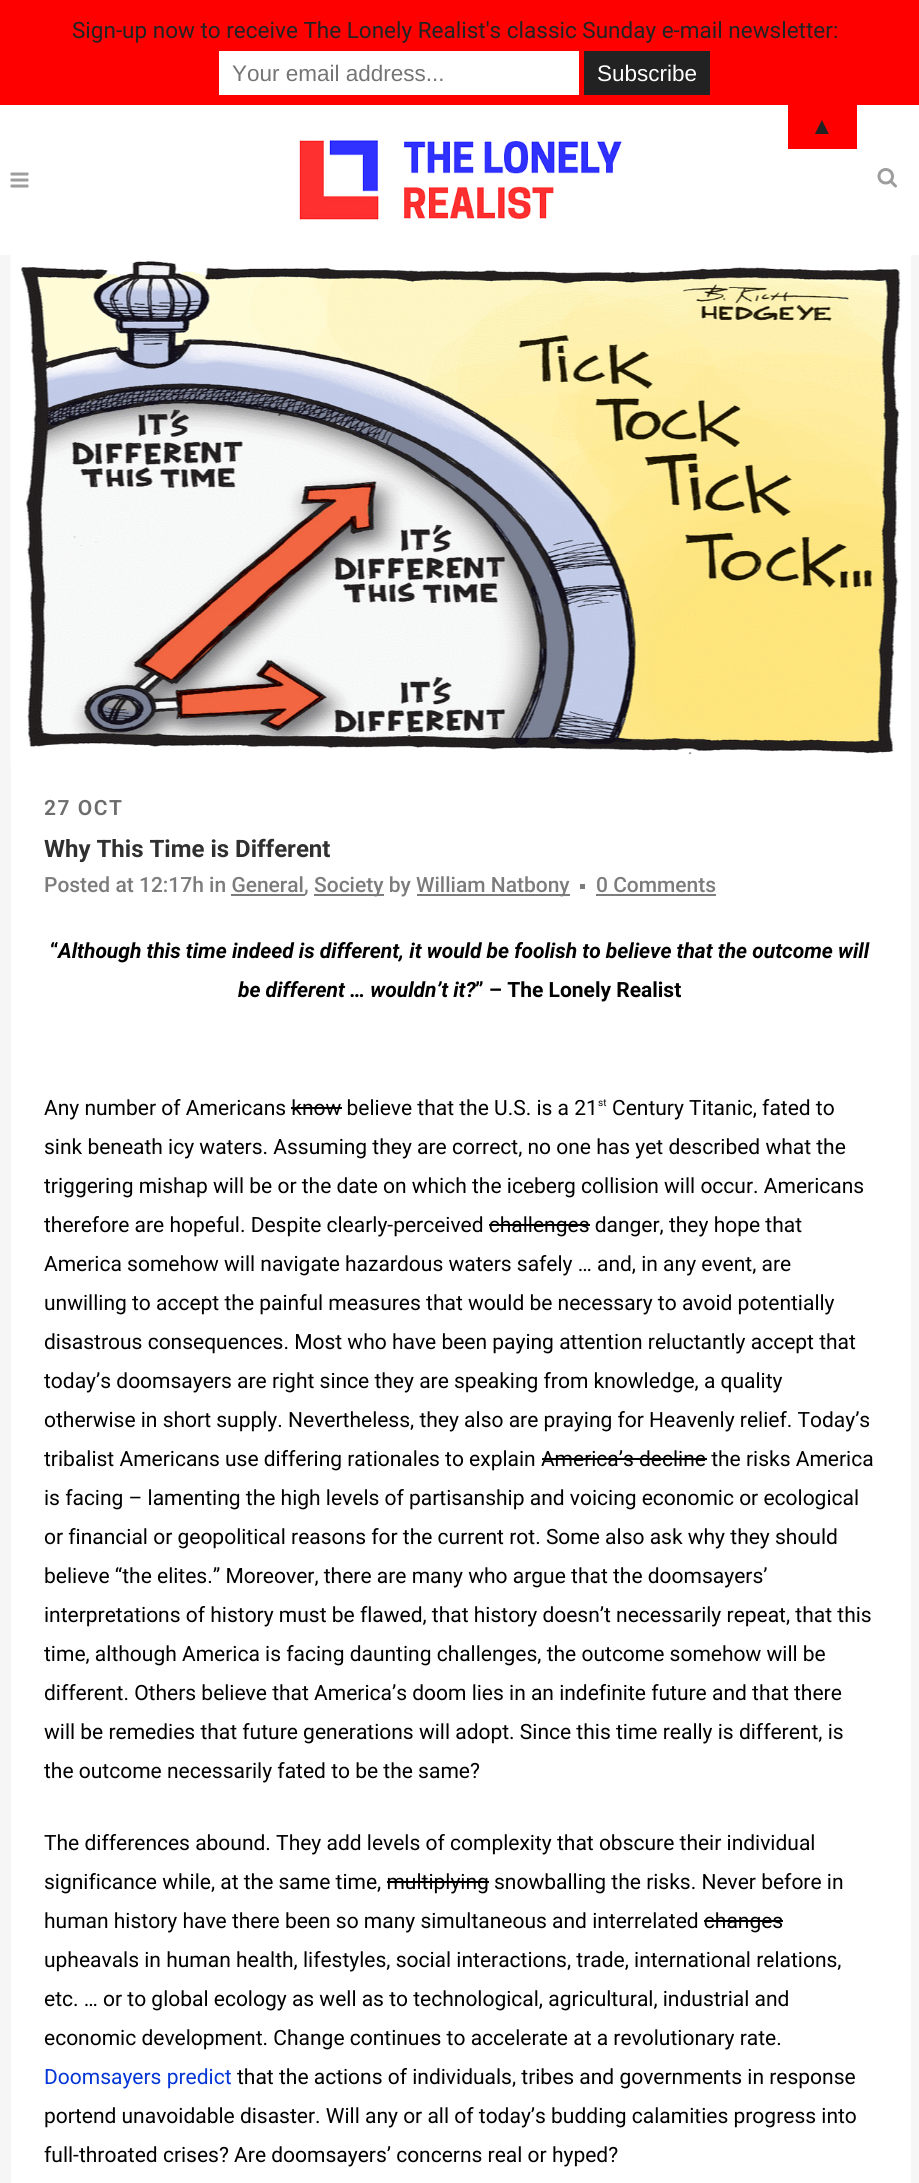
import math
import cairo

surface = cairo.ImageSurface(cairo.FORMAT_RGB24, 919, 2183)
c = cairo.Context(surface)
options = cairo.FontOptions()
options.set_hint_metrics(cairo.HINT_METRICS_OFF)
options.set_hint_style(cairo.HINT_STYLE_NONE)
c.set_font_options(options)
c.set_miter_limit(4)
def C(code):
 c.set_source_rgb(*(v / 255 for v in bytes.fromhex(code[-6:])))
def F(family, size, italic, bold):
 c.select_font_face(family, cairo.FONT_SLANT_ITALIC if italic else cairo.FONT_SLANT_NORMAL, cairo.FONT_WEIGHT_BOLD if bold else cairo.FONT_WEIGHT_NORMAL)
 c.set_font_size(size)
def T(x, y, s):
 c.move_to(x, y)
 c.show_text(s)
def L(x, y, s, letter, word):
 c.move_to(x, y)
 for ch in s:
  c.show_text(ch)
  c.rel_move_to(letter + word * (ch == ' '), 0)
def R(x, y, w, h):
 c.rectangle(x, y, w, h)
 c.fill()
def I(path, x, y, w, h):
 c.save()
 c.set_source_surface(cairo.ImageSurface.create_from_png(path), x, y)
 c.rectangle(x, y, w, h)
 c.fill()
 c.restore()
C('f6f6f6')
c.paint()
C('ff0000')
R(0,0,919,105)
F('Roboto',22.5,0,0)
C('222222')
T(72,38,'Sign-up now to receive The Lonely Realist\'s classic Sunday e-mail newsletter:')
C('ffffff')
R(219,51,360,44)
F('Liberation Sans',22.5,0,0)
C('757575')
T(232,81,'Your email address...')
C('222222')
R(584,51,126,44)
C('ffffff')
T(597,81,'Subscribe')
R(0,105,919,150)
C('ff0000')
R(788,105,69,44)
F('Liberation Sans',24,0,0)
C('222222')
T(810,134,'▲')
I('1.png',10,172,19,16)
I('2.png',299,140,323,80)
I('3.png',877,168,20,20)
C('ffffff')
R(11,255,900,1928)
I('4.png',10,255,892,507)
F('Roboto SemiBold',21,0,0)
C('6d6d6d')
L(44,815,'27 OCT',1.5,0)
F('Roboto',24,0,1)
C('303030')
T(44,857,'Why This Time is Different')
F('Roboto Medium',21,0,0)
C('7d7c7c')
T(44,892,'Posted at 12:17h in General')
R(314,894,70,2)
T(314,892,'Society by')
R(417,894,153,2)
T(416,892,'William Natbony')
R(580,884,5,5)
T(596,892,'0 Comments')
R(596,894,120,2)
R(231,894,74,2)
T(304,892,',')
F('Roboto',21,0,1)
C('000000')
T(50,958,'“')
F('Roboto',21,1,1)
T(58,958,'Although this time indeed is different, it would be foolish to believe that the outcome will')
T(238,997,'be different … wouldn’t it?')
F('Roboto',21,0,1)
T(475,997,'” – The Lonely Realist')
F('Roboto',21,0,0)
T(44,1115,'Any number of Americans know believe that the U.S. is a 21')
F('Roboto',10,0,0)
T(598,1106,'st')
F('Roboto',21,0,0)
T(612,1115,'Century Titanic, fated to')
R(291,1107,51,2)
T(44,1154,'sink beneath icy waters. Assuming they are correct, no one has yet described what the')
T(44,1193,'triggering mishap will be or the date on which the iceberg collision will occur. Americans')
T(44,1232,'therefore are hopeful. Despite clearly-perceived challenges danger, they hope that')
R(489,1224,101,2)
T(44,1271,'America somehow will navigate hazardous waters safely … and, in any event, are')
T(44,1310,'unwilling to accept the painful measures that would be necessary to avoid potentially')
T(44,1349,'disastrous consequences. Most who have been paying attention reluctantly accept that')
T(44,1388,'today’s doomsayers are right since they are speaking from knowledge, a quality')
T(44,1427,'otherwise in short supply. Nevertheless, they also are praying for Heavenly relief. Today’s')
T(44,1466,'tribalist Americans use differing rationales to explain America’s decline the risks America')
R(542,1458,165,2)
T(44,1505,'is facing – lamenting the high levels of partisanship and voicing economic or ecological')
T(44,1544,'or financial or geopolitical reasons for the current rot. Some also ask why they should')
T(44,1583,'believe “the elites.” Moreover, there are many who argue that the doomsayers’')
T(44,1622,'interpretations of history must be flawed, that history doesn’t necessarily repeat, that this')
T(44,1661,'time, although America is facing daunting challenges, the outcome somehow will be')
T(44,1700,'different. Others believe that America’s doom lies in an indefinite future and that there')
T(44,1739,'will be remedies that future generations will adopt. Since this time really is different, is')
T(44,1778,'the outcome necessarily fated to be the same?')
T(44,1850,'The differences abound. They add levels of complexity that obscure their individual')
T(44,1889,'significance while, at the same time, multiplying snowballing the risks. Never before in')
R(387,1881,102,2)
T(44,1928,'human history have there been so many simultaneous and interrelated changes')
R(704,1920,79,2)
T(44,1967,'upheavals in human health, lifestyles, social interactions, trade, international relations,')
T(44,2006,'etc. … or to global ecology as well as to technological, agricultural, industrial and')
T(44,2045,'economic development. Change continues to accelerate at a revolutionary rate.')
C('0435d6')
T(44,2084,'Doomsayers predict')
C('000000')
T(237,2084,'that the actions of individuals, tribes and governments in response')
T(44,2123,'portend unavoidable disaster. Will any or all of today’s budding calamities progress into')
T(44,2162,'full-throated crises? Are doomsayers’ concerns real or hyped?')
surface.write_to_png('o.png')
